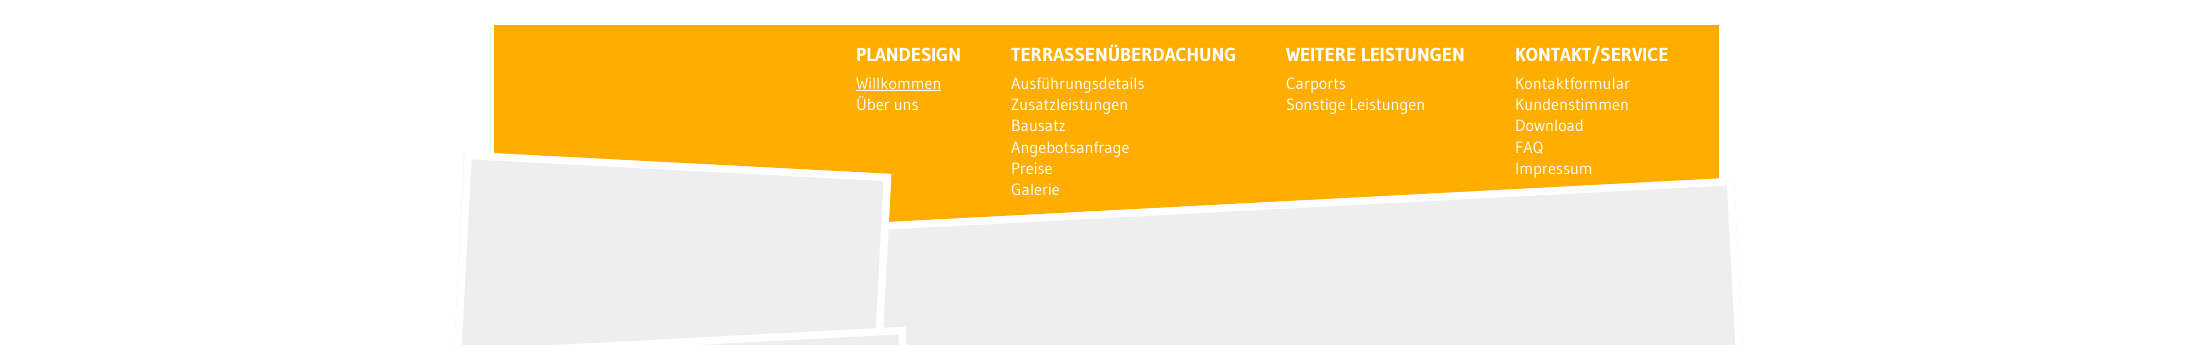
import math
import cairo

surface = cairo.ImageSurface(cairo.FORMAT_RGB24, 2212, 345)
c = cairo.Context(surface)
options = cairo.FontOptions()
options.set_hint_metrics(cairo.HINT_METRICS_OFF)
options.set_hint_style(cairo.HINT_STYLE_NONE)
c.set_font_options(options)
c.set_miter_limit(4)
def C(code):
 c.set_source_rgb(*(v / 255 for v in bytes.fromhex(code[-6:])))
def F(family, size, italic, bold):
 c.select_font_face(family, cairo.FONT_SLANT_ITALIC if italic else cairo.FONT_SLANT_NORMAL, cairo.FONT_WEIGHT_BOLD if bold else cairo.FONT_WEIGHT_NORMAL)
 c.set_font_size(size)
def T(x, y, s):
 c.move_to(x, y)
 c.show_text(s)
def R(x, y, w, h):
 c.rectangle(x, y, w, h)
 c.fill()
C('ffffff')
c.paint()
C('ffae00')
R(494,25,1225,197)
F('Gudea',18.75,0,1)
C('ffffff')
T(856,61,'PLANDESIGN')
F('Gudea',16.25,0,0)
T(856,89,'Willkommen')
R(856,90,85,1)
T(856,110,'Über uns')
F('Gudea',18.75,0,1)
T(1011,61,'TERRASSENÜBERDACHUNG')
F('Gudea',16.25,0,0)
T(1011,89,'Ausführungsdetails')
T(1011,110,'Zusatzleistungen')
T(1011,131,'Bausatz')
T(1011,153,'Angebotsanfrage')
T(1011,174,'Preise')
C('eeeeee')
c.new_path()
c.move_to(870,223)
c.line_to(1734,178)
c.line_to(1757,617)
c.line_to(893,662)
c.close_path()
c.fill()
c.new_path()
c.move_to(874.5,226.5)
c.line_to(1730.5,181.5)
c.line_to(1753,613.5)
c.line_to(897,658.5)
c.close_path()
C('ffffff')
c.set_line_width(7.5)
c.stroke()
T(1011,195,'Galerie')
F('Gudea',18.75,0,1)
T(1286,61,'WEITERE LEISTUNGEN')
F('Gudea',16.25,0,0)
T(1286,89,'Carports')
T(1286,110,'Sonstige Leistungen')
F('Gudea',18.75,0,1)
T(1515,61,'KONTAKT/SERVICE')
F('Gudea',16.25,0,0)
T(1515,89,'Kontaktformular')
T(1515,110,'Kundenstimmen')
T(1515,131,'Download')
T(1515,153,'FAQ')
T(1515,174,'Impressum')
C('eeeeee')
c.new_path()
c.move_to(464,152)
c.line_to(891,174)
c.line_to(876,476)
c.line_to(449,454)
c.close_path()
c.fill()
c.new_path()
c.move_to(468,155.5)
c.line_to(887.5,177.5)
c.line_to(872,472)
c.line_to(452.5,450)
c.close_path()
C('ffffff')
c.stroke()
C('eeeeee')
c.new_path()
c.move_to(479,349)
c.line_to(906,327)
c.line_to(921,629)
c.line_to(494,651)
c.close_path()
c.fill()
c.new_path()
c.move_to(482.5,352.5)
c.line_to(902,330.5)
c.line_to(917.5,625)
c.line_to(498,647)
c.close_path()
C('ffffff')
c.stroke()
surface.write_to_png('o.png')
